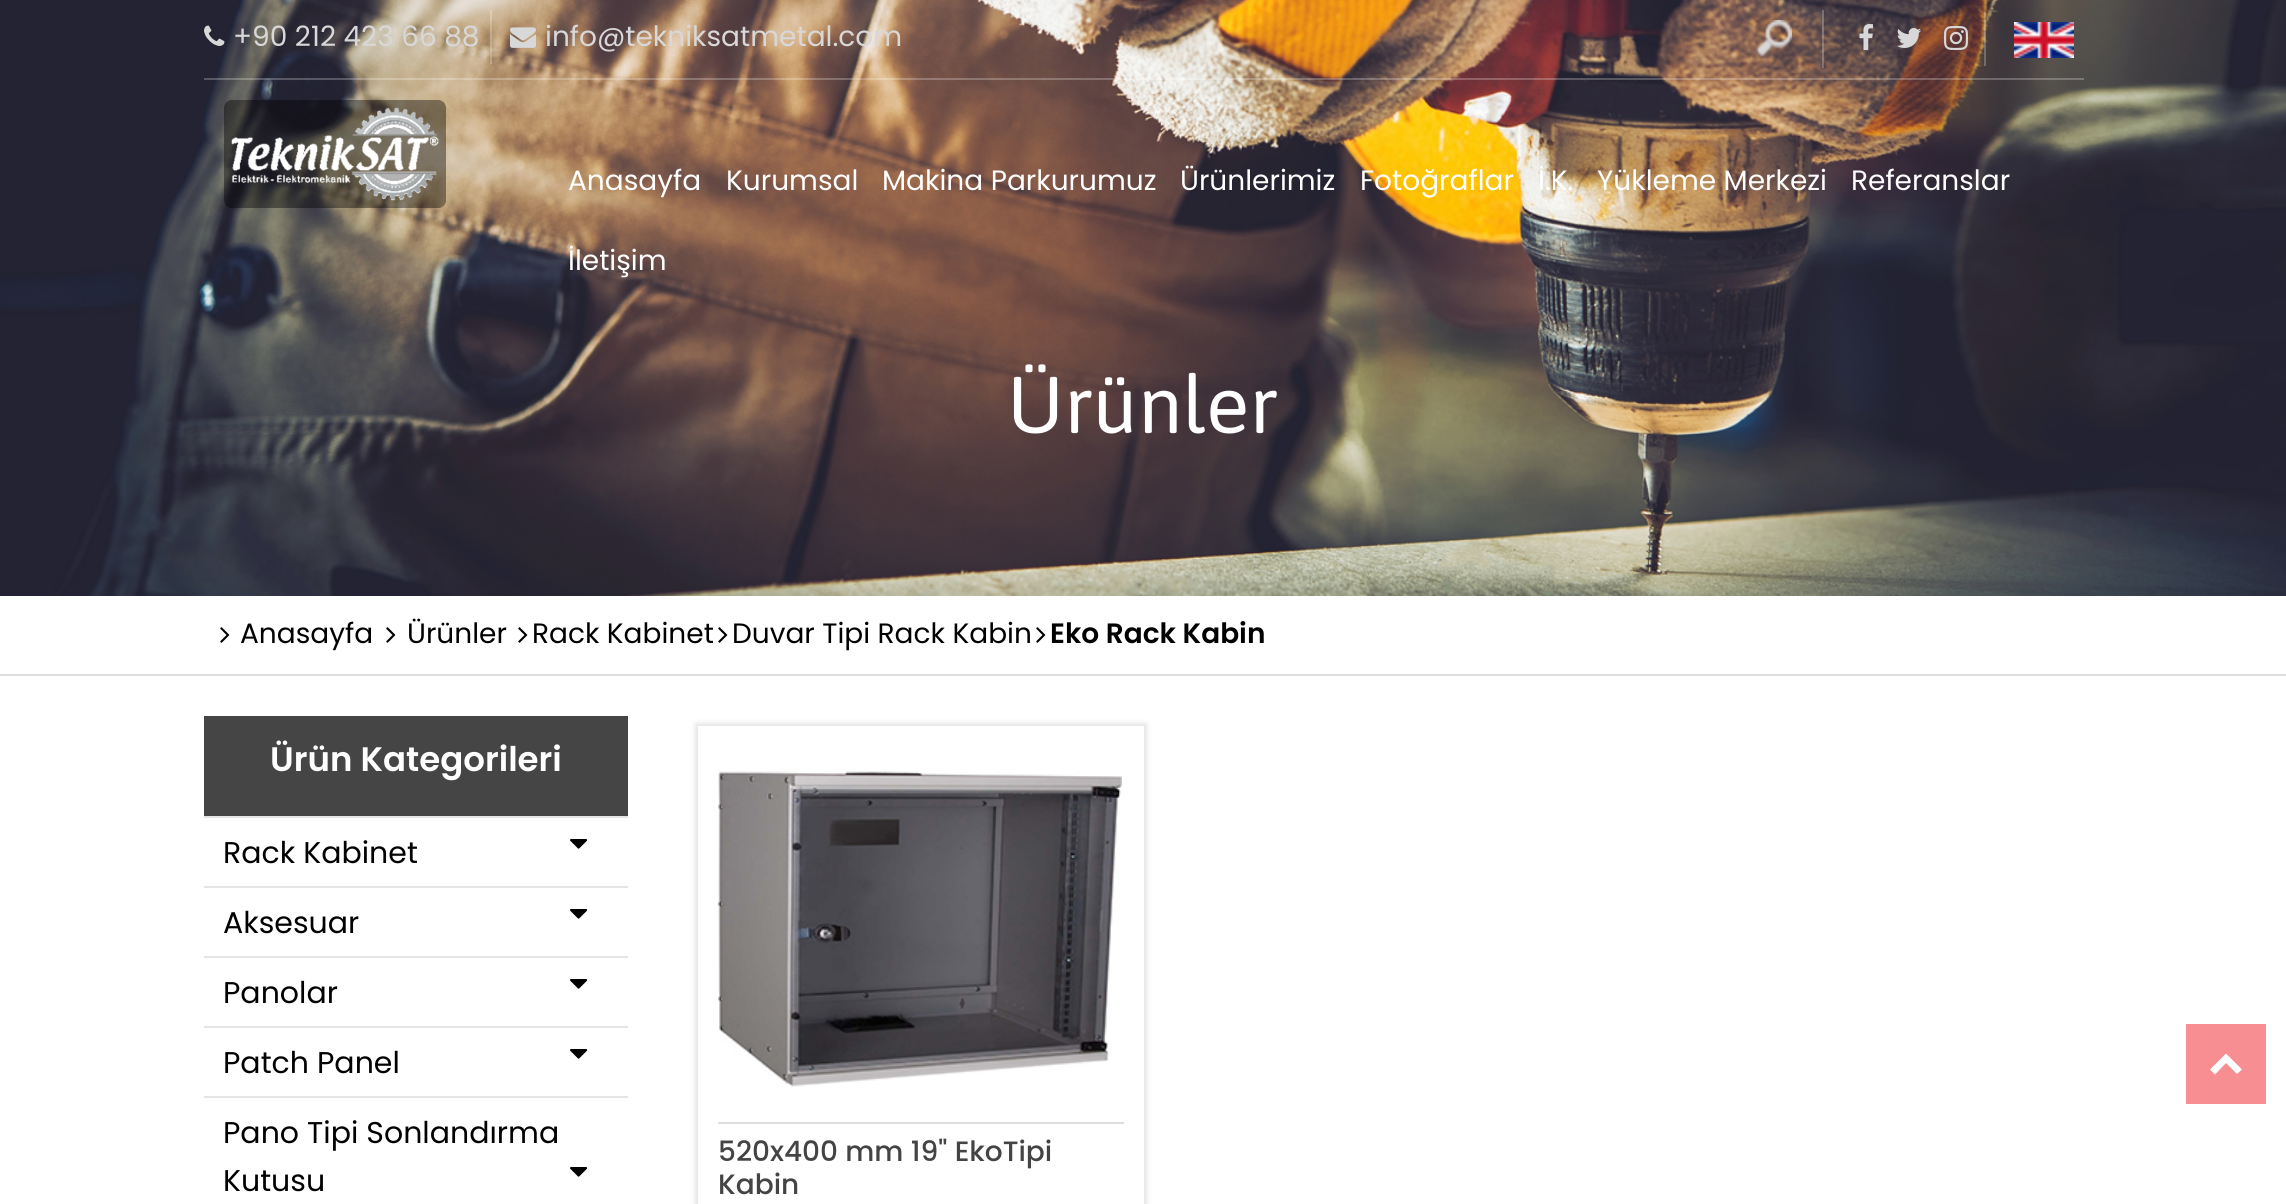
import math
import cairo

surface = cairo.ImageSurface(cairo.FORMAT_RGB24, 2286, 1204)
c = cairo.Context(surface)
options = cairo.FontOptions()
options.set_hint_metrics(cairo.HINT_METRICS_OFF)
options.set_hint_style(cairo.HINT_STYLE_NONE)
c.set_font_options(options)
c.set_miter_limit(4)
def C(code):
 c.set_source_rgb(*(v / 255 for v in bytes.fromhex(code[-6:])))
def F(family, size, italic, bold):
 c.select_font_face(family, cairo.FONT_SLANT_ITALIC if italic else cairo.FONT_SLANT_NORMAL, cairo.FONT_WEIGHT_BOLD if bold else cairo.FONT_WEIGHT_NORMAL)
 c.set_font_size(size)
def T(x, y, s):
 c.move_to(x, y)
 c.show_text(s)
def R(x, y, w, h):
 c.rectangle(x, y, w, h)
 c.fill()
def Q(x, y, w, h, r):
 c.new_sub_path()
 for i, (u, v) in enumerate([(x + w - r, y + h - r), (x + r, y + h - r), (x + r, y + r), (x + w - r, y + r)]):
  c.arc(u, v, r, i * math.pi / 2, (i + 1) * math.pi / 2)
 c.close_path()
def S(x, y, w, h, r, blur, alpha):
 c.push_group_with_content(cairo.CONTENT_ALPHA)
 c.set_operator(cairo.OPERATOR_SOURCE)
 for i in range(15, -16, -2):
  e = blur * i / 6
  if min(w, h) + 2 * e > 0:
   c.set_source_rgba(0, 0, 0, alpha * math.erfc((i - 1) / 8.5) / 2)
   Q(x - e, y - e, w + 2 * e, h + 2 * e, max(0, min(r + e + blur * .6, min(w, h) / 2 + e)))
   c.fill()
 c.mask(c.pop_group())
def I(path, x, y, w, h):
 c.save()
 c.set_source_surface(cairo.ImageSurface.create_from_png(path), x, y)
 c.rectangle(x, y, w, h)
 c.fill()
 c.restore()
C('ffffff')
c.paint()
I('1.png',0,0,2286,596)
c.set_source_rgba(1,1,1,0.24)
R(490,10,2,54)
I('2.png',204,25,21,21)
F('Poppins',28,0,0)
C('d8d8d9')
T(233,46,'+90 212 423 66 88')
I('3.png',510,27,26,21)
T(545,46,'info@tekniksatmetal.com')
c.set_source_rgba(1,1,1,0.24)
R(1822,10,2,58)
I('4.png',1756,20,36,37)
R(1984,12,2,54)
I('5.png',1859,24,14,26)
I('6.png',1896,28,26,20)
I('7.png',1944,26,24,24)
I('8.png',2014,22,60,36)
R(204,78,1880,2)
I('9.png',224,100,222,108)
C('ffffff')
T(568,190,'Anasayfa')
T(726,190,'Kurumsal')
T(882,190,'Makina Parkurumuz')
T(1180,190,'Ürünlerimiz')
T(1360,190,'Fotoğraflar')
T(1538,190,'İ.K.')
T(1597,190,'Yükleme Merkezi')
T(1851,190,'Referanslar')
T(568,270,'İletişim')
F('Asap',80,0,0)
T(1007,433,'Ürünler')
C('dddddd')
R(0,674,2286,2)
I('10.png',220,627,10,16)
F('Poppins',28,0,0)
C('000000')
T(240,643,'Anasayfa')
I('10.png',386,627,10,16)
T(407,643,'Ürünler')
I('10.png',518,627,10,16)
T(532,643,'Rack Kabinet')
I('10.png',718,627,10,16)
T(732,643,'Duvar Tipi Rack Kabin')
I('10.png',1036,627,10,16)
F('Poppins SemiBold',28,0,0)
T(1050,643,'Eko Rack Kabin')
C('444544')
R(204,716,424,100)
F('Poppins SemiBold',34,0,0)
C('ffffff')
T(270,771,'Ürün Kategorileri')
C('e5e5e5')
R(204,816,424,2)
R(204,886,424,2)
F('Poppins',30,0,0)
C('000000')
T(223,863,'Rack Kabinet')
I('11.png',570,839,18,10)
C('e5e5e5')
R(204,956,424,2)
C('000000')
T(223,933,'Aksesuar')
I('11.png',570,909,18,10)
C('e5e5e5')
R(204,1026,424,2)
C('000000')
T(223,1003,'Panolar')
I('11.png',570,979,18,10)
C('e5e5e5')
R(204,1096,424,2)
C('000000')
T(223,1073,'Patch Panel')
I('11.png',570,1049,18,10)
T(223,1143,'Pano Tipi Sonlandırma')
T(223,1191,'Kutusu')
I('11.png',570,1167,18,10)
c.save()
c.set_fill_rule(cairo.FILL_RULE_EVEN_ODD)
c.new_path()
c.move_to(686,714)
c.line_to(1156,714)
c.line_to(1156,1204)
c.line_to(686,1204)
c.close_path()
c.move_to(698,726)
c.line_to(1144,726)
c.line_to(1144,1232)
c.line_to(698,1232)
c.close_path()
c.clip()
C('dddddd')
S(696,724,450,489,0,3,1)
c.restore()
I('12.png',718,771,404,316)
C('dddddd')
R(718,1122,406,2)
F('Poppins Medium',28,0,0)
C('444444')
T(718,1161,'520x400 mm 19" EkoTipi')
T(718,1194,'Kabin')
C('f68e92')
R(2186,1024,80,80)
C('ffffff')
c.new_path()
c.move_to(2226,1053.5)
c.line_to(2242,1069.5)
c.line_to(2237,1074)
c.line_to(2226,1063)
c.line_to(2215,1074.5)
c.line_to(2210,1069.5)
c.close_path()
c.fill()
surface.write_to_png('o.png')
